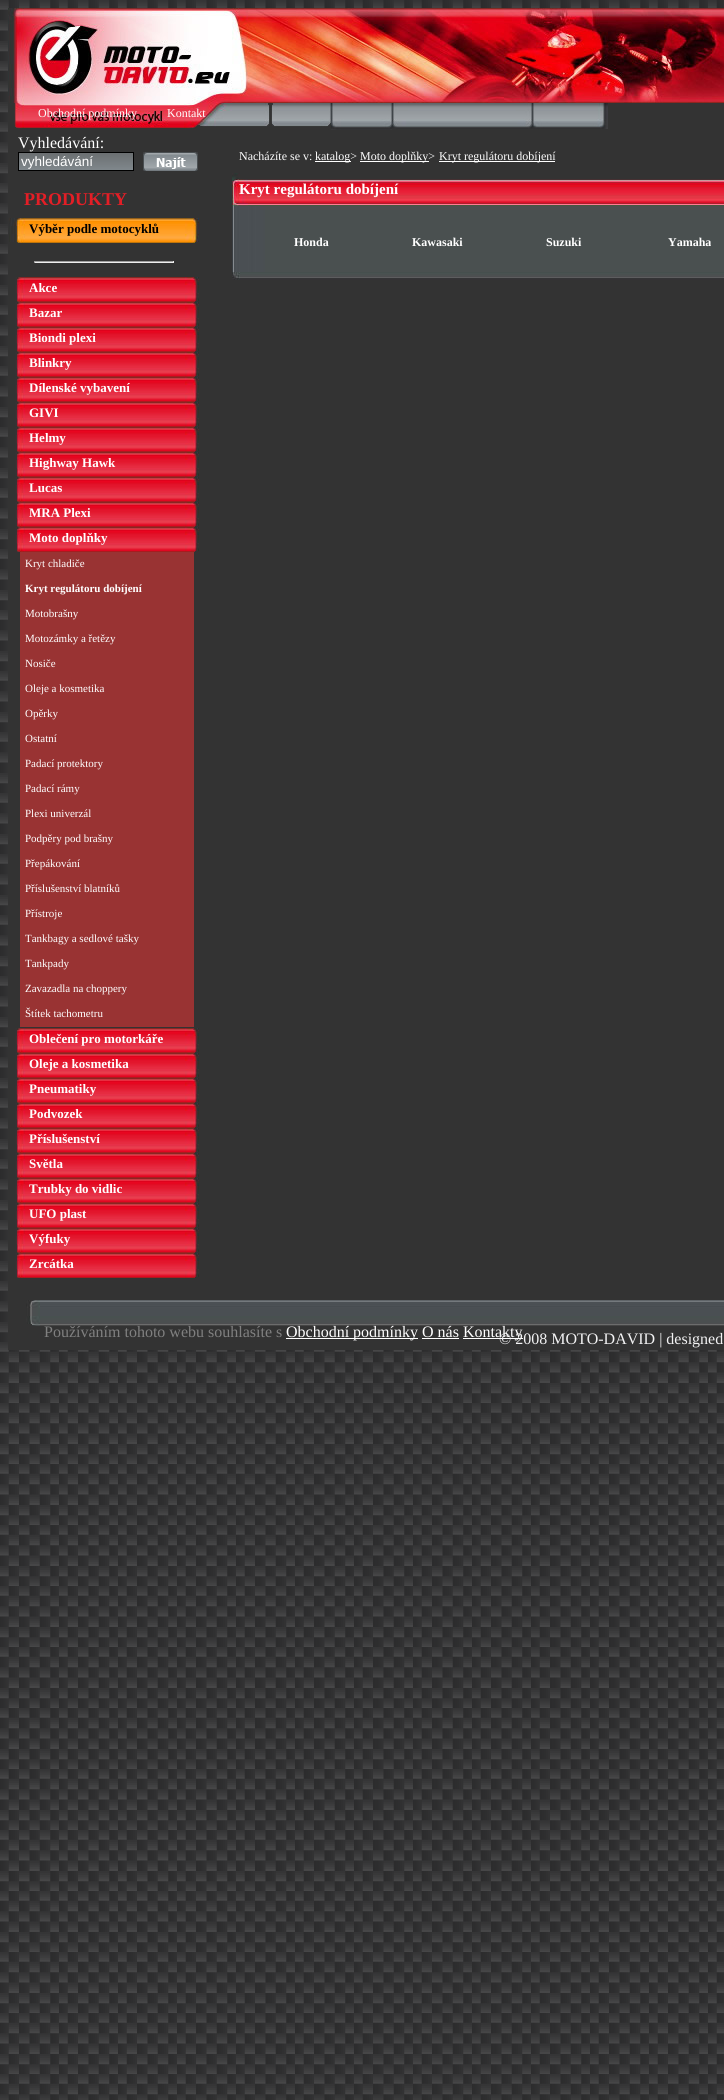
import math
import cairo

surface = cairo.ImageSurface(cairo.FORMAT_RGB24, 724, 2100)
c = cairo.Context(surface)
options = cairo.FontOptions()
options.set_hint_metrics(cairo.HINT_METRICS_OFF)
options.set_hint_style(cairo.HINT_STYLE_NONE)
c.set_font_options(options)
c.set_miter_limit(4)
def C(code):
 c.set_source_rgb(*(v / 255 for v in bytes.fromhex(code[-6:])))
def F(family, size, italic, bold):
 c.select_font_face(family, cairo.FONT_SLANT_ITALIC if italic else cairo.FONT_SLANT_NORMAL, cairo.FONT_WEIGHT_BOLD if bold else cairo.FONT_WEIGHT_NORMAL)
 c.set_font_size(size)
def T(x, y, s):
 c.move_to(x, y)
 c.show_text(s)
def R(x, y, w, h):
 c.rectangle(x, y, w, h)
 c.fill()
def I(path, x, y, w, h):
 c.save()
 c.set_source_surface(cairo.ImageSurface.create_from_png(path), x, y)
 c.rectangle(x, y, w, h)
 c.fill()
 c.restore()
C('ffffff')
c.paint()
I('1.png',0,0,724,2100)
C('333333')
R(8,103,716,1247)
I('2.png',8,8,716,95)
I('3.png',14,103,594,27)
F('Liberation Serif',12,0,0)
C('ffffff')
T(38,117,'Obchodní podmínky')
T(167,117,'Kontakt')
F('Liberation Serif',16,0,0)
T(18,148,'Vyhledávání:')
I('4.png',19,153,114,17)
c.rectangle(18.5,152.5,115,18)
C('000000')
c.set_line_width(1)
c.stroke()
F('Liberation Sans',13.5,0,0)
C('ffffff')
T(21,166,'vyhledávání')
I('5.png',143,152,55,19)
F('Liberation Serif',18,0,1)
C('e41e26')
T(24,205,'PRODUKTY')
I('6.png',9,218,190,25)
F('Liberation Serif',13,0,1)
C('000000')
T(29,233,'Výběr podle motocyklů')
C('9f9f9f')
R(34,261,140,1)
C('eeeeee')
R(173,261,1,2)
R(34,262,140,1)
C('9f9f9f')
R(34,261,1,2)
I('7.png',15,277,184,25)
C('ffffff')
T(29,292,'Akce')
I('7.png',15,302,184,25)
T(29,317,'Bazar')
I('7.png',15,327,184,25)
T(29,342,'Biondi plexi')
I('7.png',15,352,184,25)
T(29,367,'Blinkry')
I('7.png',15,377,184,25)
T(29,392,'Dílenské vybavení')
I('7.png',15,402,184,25)
T(29,417,'GIVI')
I('7.png',15,427,184,25)
T(29,442,'Helmy')
I('7.png',15,452,184,25)
T(29,467,'Highway Hawk')
I('7.png',15,477,184,25)
T(29,492,'Lucas')
I('7.png',15,502,184,25)
T(29,517,'MRA Plexi')
I('7.png',15,527,184,25)
T(29,542,'Moto doplňky')
C('993333')
R(20,552,174,475)
F('Liberation Serif',11,0,0)
C('ffffff')
T(25,567,'Kryt chladiče')
F('Liberation Serif',11,0,1)
T(25,592,'Kryt regulátoru dobíjení')
F('Liberation Serif',11,0,0)
T(25,617,'Motobrašny')
T(25,642,'Motozámky a řetězy')
T(25,667,'Nosiče')
T(25,692,'Oleje a kosmetika')
T(25,717,'Opěrky')
T(25,742,'Ostatní')
T(25,767,'Padací protektory')
T(25,792,'Padací rámy')
T(25,817,'Plexi univerzál')
T(25,842,'Podpěry pod brašny')
T(25,867,'Přepákování')
T(25,892,'Příslušenství blatníků')
T(25,917,'Přístroje')
T(25,942,'Tankbagy a sedlové tašky')
T(25,967,'Tankpady')
T(25,992,'Zavazadla na choppery')
T(25,1017,'Štítek tachometru')
I('7.png',15,1028,184,25)
F('Liberation Serif',13,0,1)
T(29,1043,'Oblečení pro motorkáře')
I('7.png',15,1053,184,25)
T(29,1068,'Oleje a kosmetika')
I('7.png',15,1078,184,25)
T(29,1093,'Pneumatiky')
I('7.png',15,1103,184,25)
T(29,1118,'Podvozek')
I('7.png',15,1128,184,25)
T(29,1143,'Příslušenství')
I('7.png',15,1153,184,25)
T(29,1168,'Světla')
I('7.png',15,1178,184,25)
T(29,1193,'Trubky do vidlic')
I('7.png',15,1203,184,25)
T(29,1218,'UFO plast')
I('7.png',15,1228,184,25)
T(29,1243,'Výfuky')
I('7.png',15,1253,184,25)
T(29,1268,'Zrcátka')
F('Liberation Serif',12,0,0)
T(239,160,'Nacházíte se v:')
R(315,161,36,1)
T(315,160,'katalog>')
R(360,161,69,1)
T(360,160,'Moto doplňky>')
R(439,161,116,1)
T(439,160,'Kryt regulátoru dobíjení')
I('8.png',232,173,492,33)
F('Liberation Serif',15,0,1)
T(239,194,'Kryt regulátoru dobíjení')
I('9.png',232,206,492,66)
F('Liberation Serif',12,0,1)
T(294,246,'Honda')
T(412,246,'Kawasaki')
T(546,246,'Suzuki')
T(668,246,'Yamaha')
I('10.png',232,272,492,8)
I('11.png',26,1300,698,26)
F('Liberation Serif',16,0,0)
C('808080')
T(44,1337,'Používáním tohoto webu souhlasíte s')
C('ffffff')
R(286,1338,132,1)
T(286,1337,'Obchodní podmínky O nás')
R(463,1338,60,1)
T(463,1337,'Kontakty')
R(422,1338,37,1)
C('f2f2f3')
T(499,1344,'© 2008 MOTO-DAVID | designed')
surface.write_to_png('o.png')
